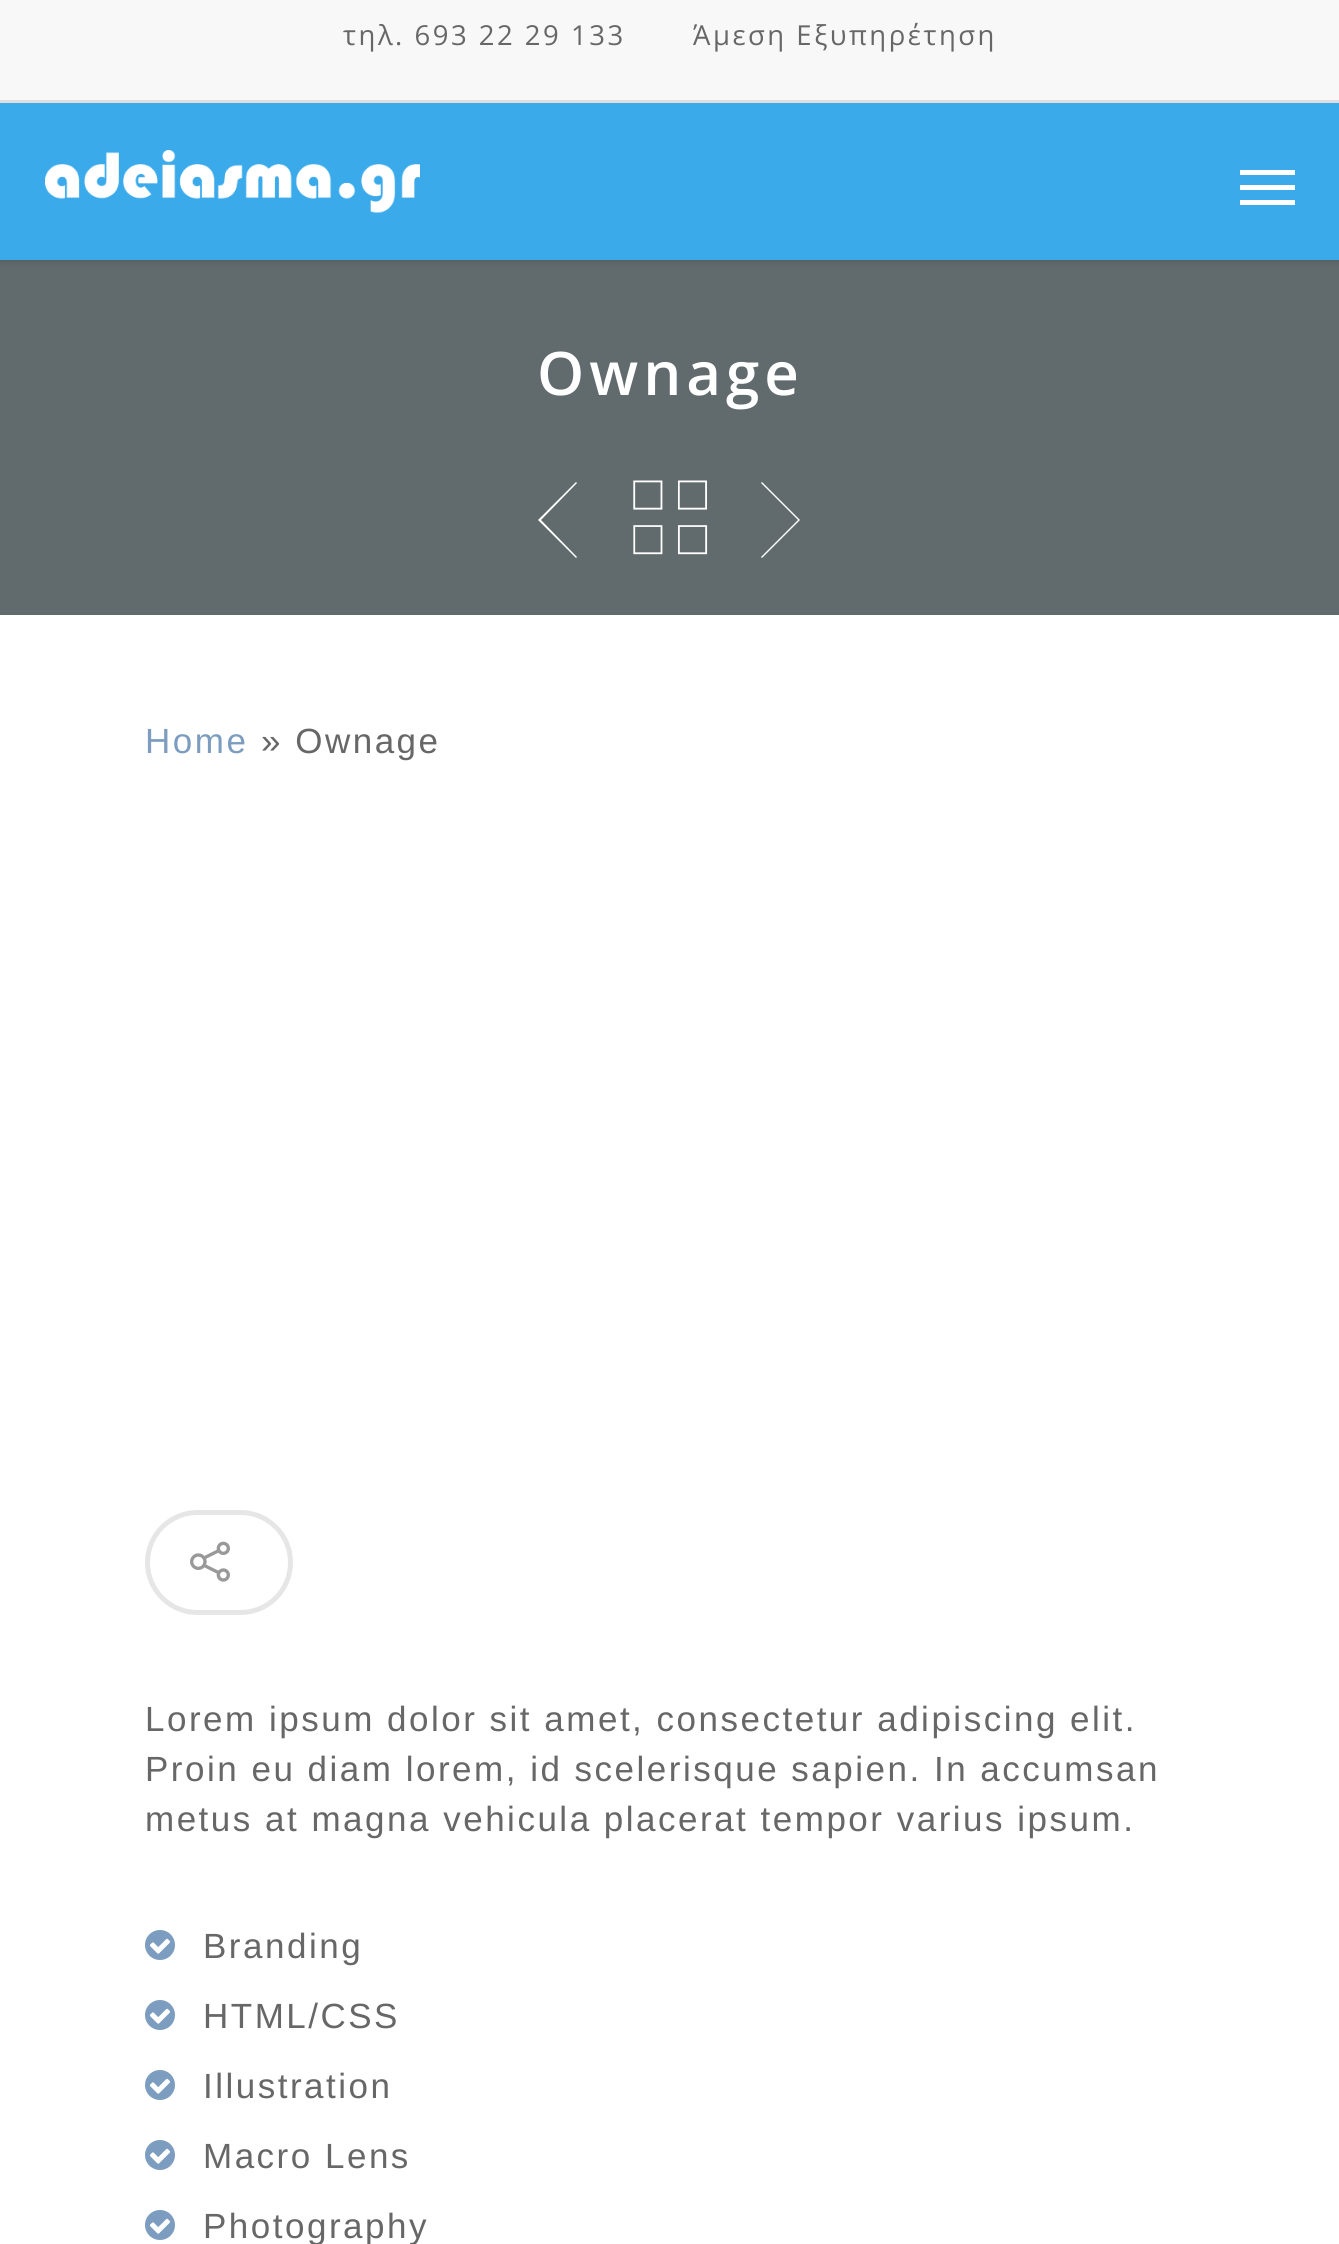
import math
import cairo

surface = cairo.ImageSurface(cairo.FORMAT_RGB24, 1339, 2244)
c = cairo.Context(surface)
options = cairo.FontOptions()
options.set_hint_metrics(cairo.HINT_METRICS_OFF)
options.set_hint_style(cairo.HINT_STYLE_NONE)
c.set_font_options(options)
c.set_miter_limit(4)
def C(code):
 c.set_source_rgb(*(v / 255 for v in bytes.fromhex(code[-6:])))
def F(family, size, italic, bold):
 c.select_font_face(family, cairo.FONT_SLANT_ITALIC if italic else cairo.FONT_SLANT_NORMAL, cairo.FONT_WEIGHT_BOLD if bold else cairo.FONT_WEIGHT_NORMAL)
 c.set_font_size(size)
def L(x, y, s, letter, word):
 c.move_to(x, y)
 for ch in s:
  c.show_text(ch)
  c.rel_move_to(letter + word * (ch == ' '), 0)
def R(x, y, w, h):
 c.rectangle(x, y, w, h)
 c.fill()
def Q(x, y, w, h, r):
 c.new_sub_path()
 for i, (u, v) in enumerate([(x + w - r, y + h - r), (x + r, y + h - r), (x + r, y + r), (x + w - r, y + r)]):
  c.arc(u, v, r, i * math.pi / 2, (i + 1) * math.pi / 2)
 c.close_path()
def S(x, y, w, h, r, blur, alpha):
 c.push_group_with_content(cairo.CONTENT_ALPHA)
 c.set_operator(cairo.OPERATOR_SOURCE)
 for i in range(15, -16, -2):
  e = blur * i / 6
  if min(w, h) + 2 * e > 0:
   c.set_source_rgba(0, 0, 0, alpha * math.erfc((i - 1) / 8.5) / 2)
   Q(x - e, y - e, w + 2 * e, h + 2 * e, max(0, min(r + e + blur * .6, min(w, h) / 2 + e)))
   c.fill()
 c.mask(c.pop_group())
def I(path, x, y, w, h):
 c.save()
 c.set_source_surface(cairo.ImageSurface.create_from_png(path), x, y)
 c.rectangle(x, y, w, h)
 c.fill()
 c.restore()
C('616b6d')
c.paint()
C('000000')
S(0,103,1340,157,0,4,.22)
C('f8f8f8')
R(0,0,1339,100)
C('dfdfdf')
R(0,100,1339,3)
F('Open Sans',27.5,0,0)
C('676767')
L(343,45,'τηλ. 693 22 29 133',2.5,0)
L(693,45,'Άμεση Εξυπηρέτηση',2.5,0)
C('3aaaea')
R(0,103,1339,157)
I('1.png',45,150,375,63)
C('ffffff')
R(1240,170,55,5)
R(1240,200,55,5)
R(1240,185,55,5)
F('Open Sans SemiBold',60,0,0)
L(537,395,'Ownage',5,0)
I('2.png',633,480,75,75)
c.new_path()
c.move_to(577,483)
c.line_to(576,482)
c.line_to(538,520)
c.line_to(576,558)
c.line_to(577,557)
c.line_to(541,520)
c.close_path()
c.fill()
c.new_path()
c.move_to(761,483)
c.line_to(762,482)
c.line_to(800,520)
c.line_to(762,558)
c.line_to(761,557)
c.line_to(798,520)
c.close_path()
c.fill()
R(0,615,1339,1629)
F('Liberation Sans',35,0,0)
C('7c9dbf')
L(145,753,'Home',2.5,0)
C('676767')
L(261,753,'» Ownage',2.5,0)
Q(147.5,1512.5,143,100,50)
C('e6e6e6')
c.set_line_width(5)
c.stroke()
I('3.png',190,1541,40,41)
C('676767')
L(145,1731,'Lorem ipsum dolor sit amet, consectetur adipiscing elit.',2.5,0)
L(145,1781,'Proin eu diam lorem, id scelerisque sapien. In accumsan',2.5,0)
L(145,1831,'metus at magna vehicula placerat tempor varius ipsum.',2.5,0)
I('4.png',145,1930,30,30)
L(203,1958,'Branding',2.5,0)
I('4.png',145,2000,30,30)
L(203,2028,'HTML/CSS',2.5,0)
I('4.png',145,2070,30,30)
L(203,2098,'Illustration',2.5,0)
I('4.png',145,2140,30,30)
L(203,2168,'Macro Lens',2.5,0)
I('4.png',145,2210,30,30)
L(203,2238,'Photography',2.5,0)
surface.write_to_png('o.png')
